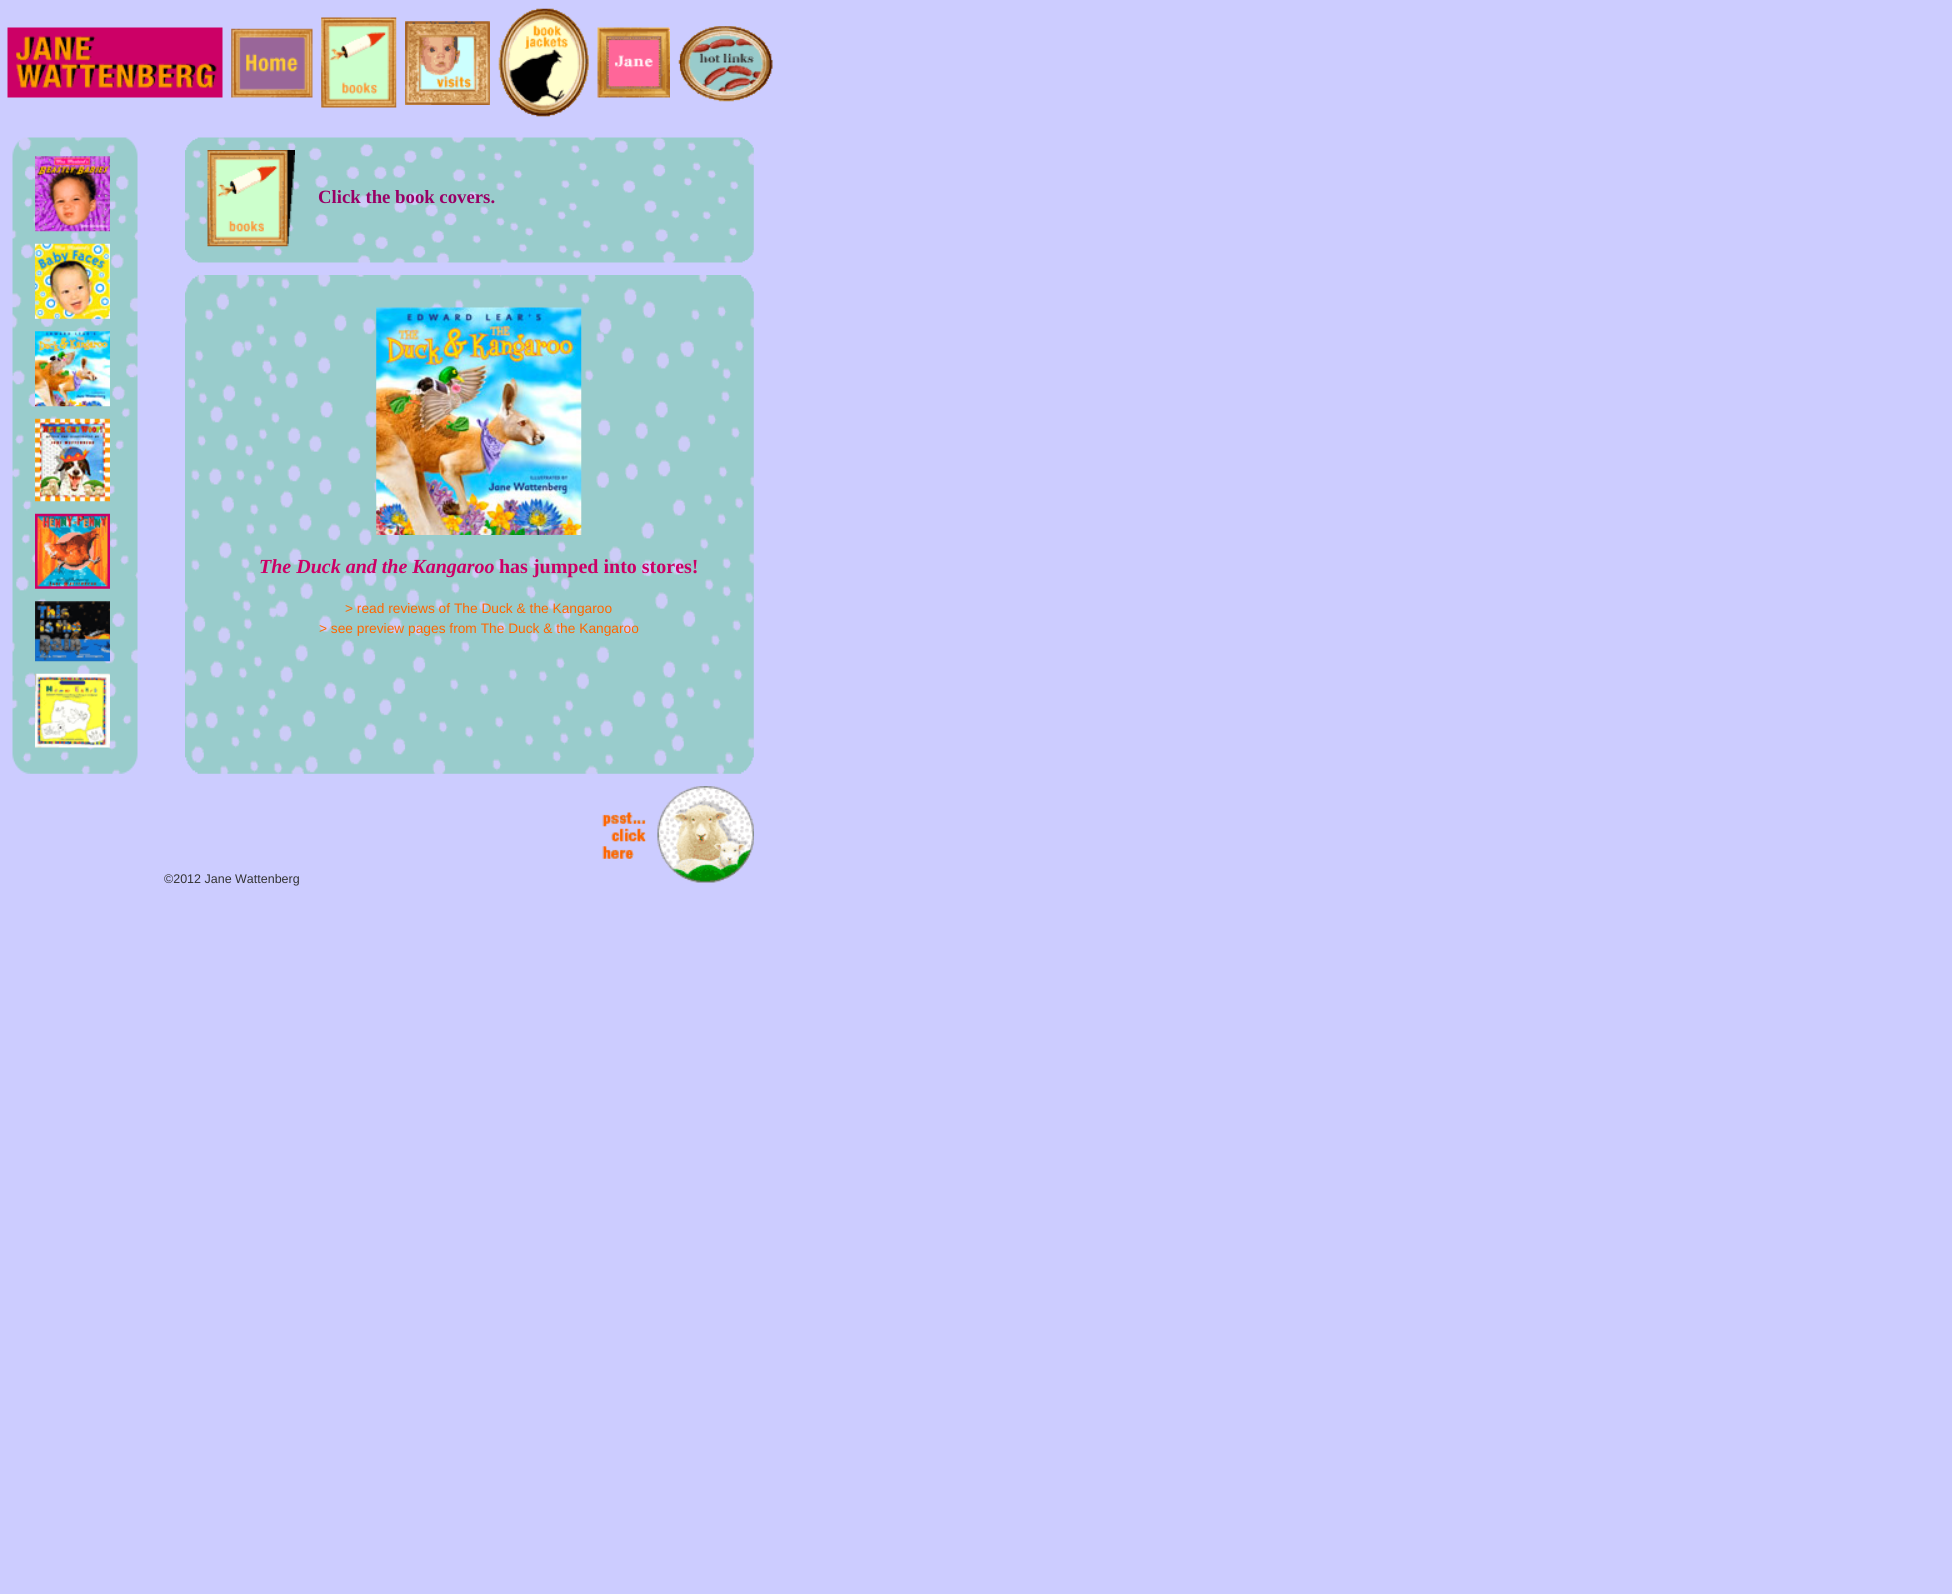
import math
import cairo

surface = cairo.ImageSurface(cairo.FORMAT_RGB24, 1952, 1594)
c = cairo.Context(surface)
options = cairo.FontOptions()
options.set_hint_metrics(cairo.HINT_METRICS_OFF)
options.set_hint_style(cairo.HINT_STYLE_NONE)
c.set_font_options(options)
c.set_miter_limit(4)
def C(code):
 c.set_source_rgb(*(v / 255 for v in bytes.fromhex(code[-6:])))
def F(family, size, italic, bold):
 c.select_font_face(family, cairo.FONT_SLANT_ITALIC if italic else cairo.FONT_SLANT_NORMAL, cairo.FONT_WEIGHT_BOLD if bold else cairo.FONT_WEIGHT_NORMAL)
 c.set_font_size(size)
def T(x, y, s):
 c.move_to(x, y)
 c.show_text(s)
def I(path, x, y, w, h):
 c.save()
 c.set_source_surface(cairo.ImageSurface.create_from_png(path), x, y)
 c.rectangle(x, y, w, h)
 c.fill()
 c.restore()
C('ccccff')
c.paint()
I('17.png',12,137,126,637)
I('1.png',35,156,75,76)
I('2.png',35,243,75,76)
I('3.png',35,331,75,76)
I('4.png',35,418,75,84)
I('5.png',35,513,75,76)
I('6.png',35,601,75,61)
I('7.png',35,673,75,75)
I('18.png',185,137,569,126)
I('8.png',207,150,88,97)
F('Liberation Serif',18.75,0,1)
C('990066')
T(318,203,'Click the book covers.')
I('19.png',185,275,569,499)
I('9.png',376,307,206,228)
F('Liberation Serif',20,1,1)
C('cc0066')
T(259,573,'The Duck and the Kangaroo')
F('Liberation Serif',20,0,1)
T(499,573,'has jumped into stores!')
F('Liberation Sans',13.75,0,0)
C('ff6600')
T(345,613,'> read reviews of The Duck & the Kangaroo')
T(319,633,'> see preview pages from The Duck & the Kangaroo')
I('10.png',7,27,216,71)
I('11.png',231,28,82,70)
I('12.png',321,17,76,91)
I('13.png',405,21,85,84)
I('14.png',498,8,91,109)
I('15.png',597,27,73,71)
I('16.png',678,26,95,76)
F('Liberation Sans',12.5,0,0)
C('333333')
T(164,883,'©2012 Jane Wattenberg')
I('20.png',602,786,152,97)
surface.write_to_png('o.png')
